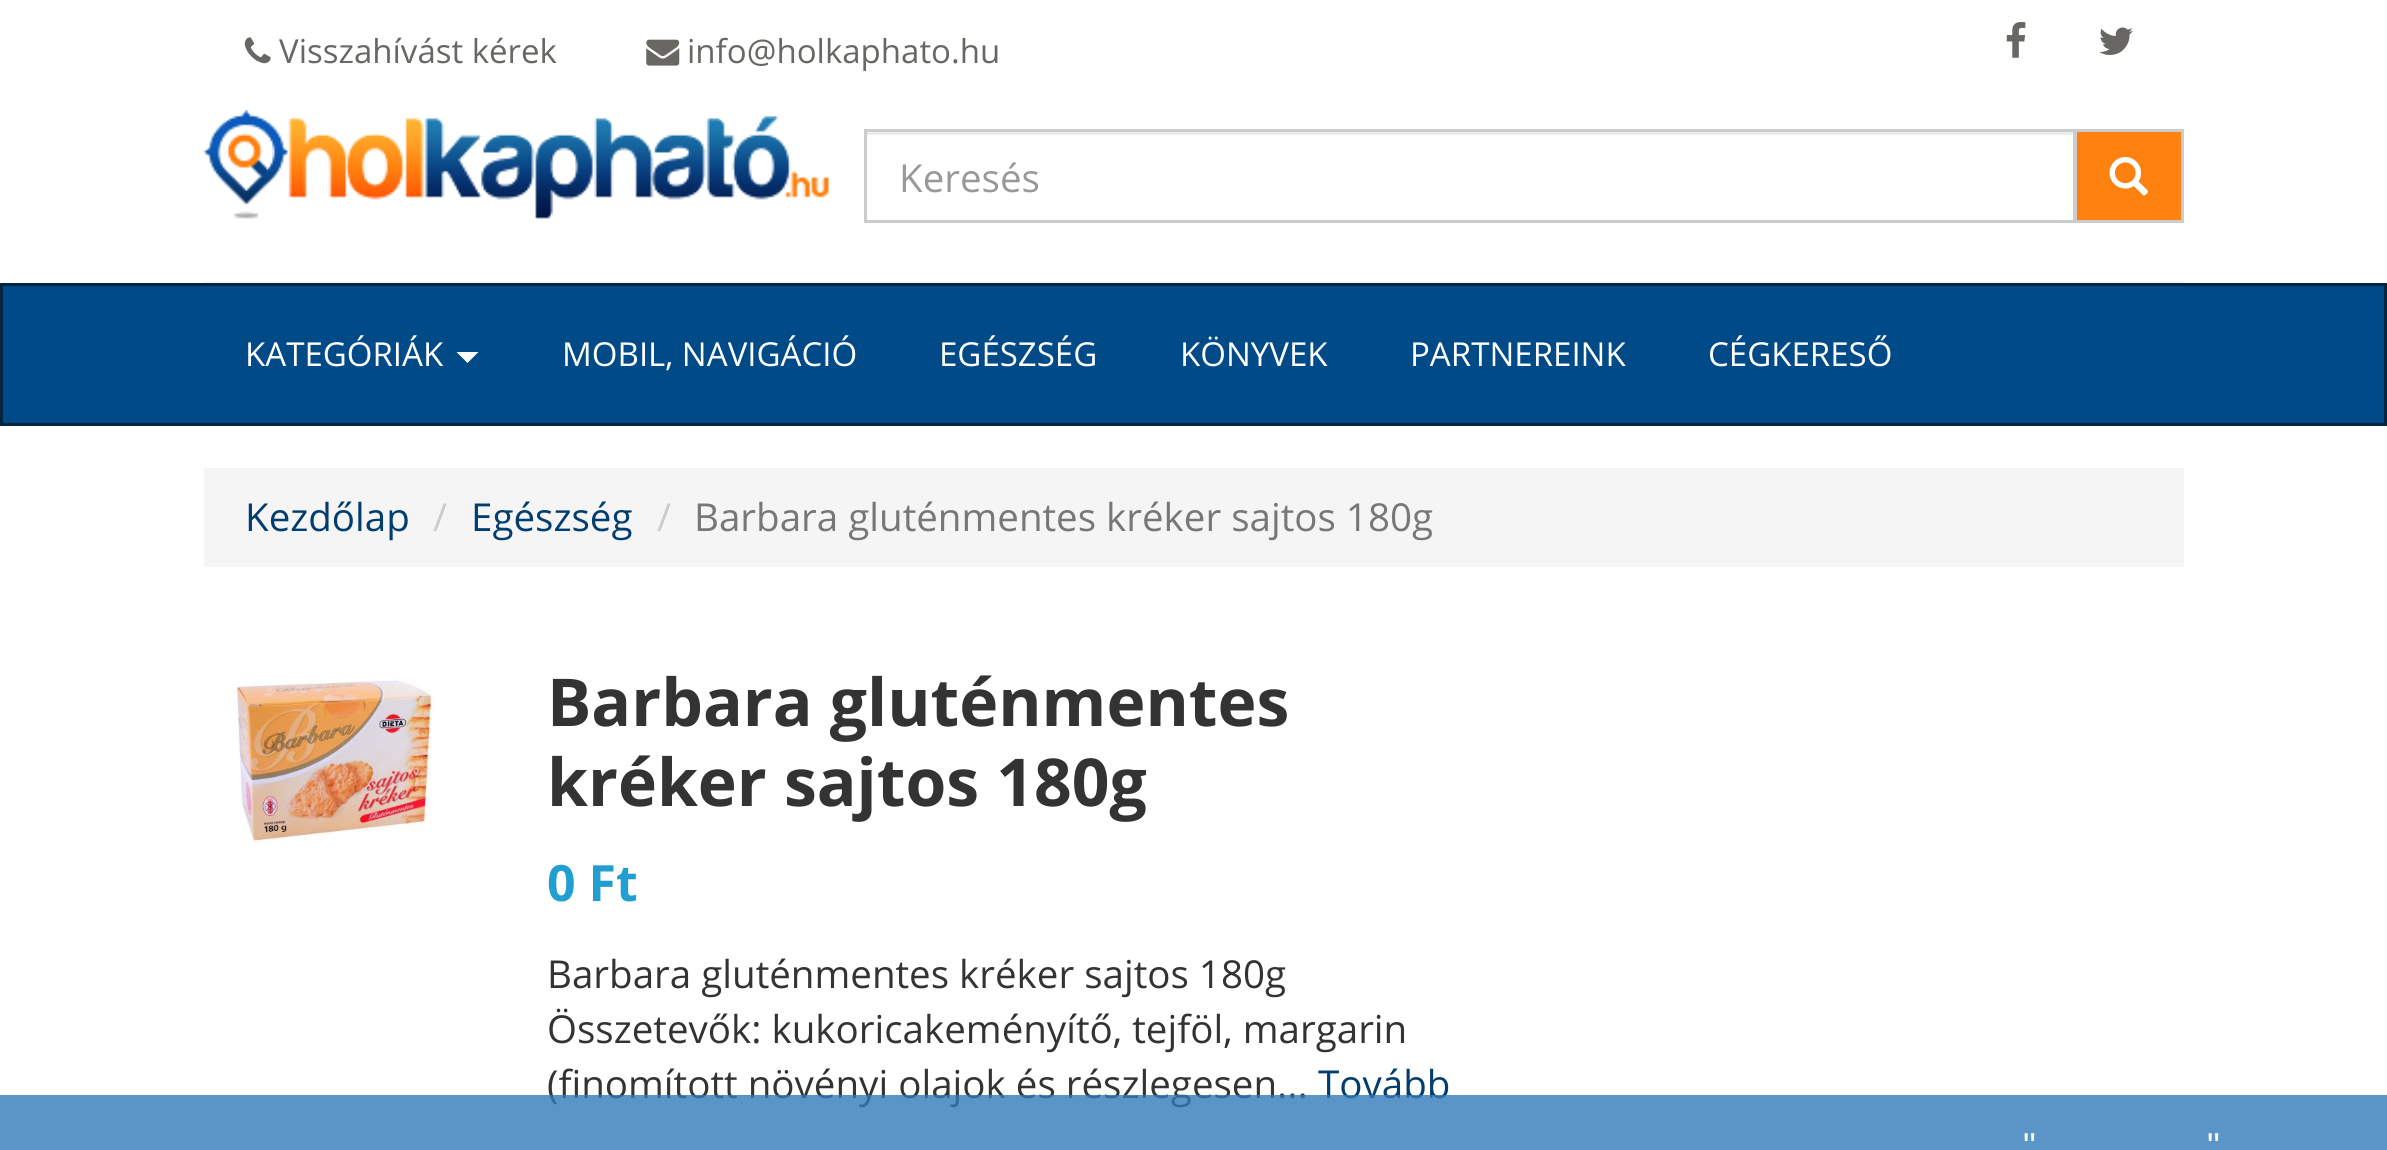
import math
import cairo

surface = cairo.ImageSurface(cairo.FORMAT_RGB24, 2387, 1150)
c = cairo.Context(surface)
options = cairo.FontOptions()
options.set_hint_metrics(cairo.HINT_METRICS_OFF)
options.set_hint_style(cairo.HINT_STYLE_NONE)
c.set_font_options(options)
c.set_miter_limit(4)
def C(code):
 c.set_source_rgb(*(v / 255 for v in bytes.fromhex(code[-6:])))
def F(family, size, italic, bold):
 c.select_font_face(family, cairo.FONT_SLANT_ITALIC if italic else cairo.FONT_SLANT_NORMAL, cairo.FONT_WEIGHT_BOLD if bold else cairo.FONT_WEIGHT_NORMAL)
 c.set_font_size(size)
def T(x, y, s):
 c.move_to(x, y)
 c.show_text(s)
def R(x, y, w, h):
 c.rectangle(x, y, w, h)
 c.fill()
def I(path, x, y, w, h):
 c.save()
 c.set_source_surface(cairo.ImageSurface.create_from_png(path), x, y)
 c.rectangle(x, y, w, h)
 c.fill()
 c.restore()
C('ffffff')
c.paint()
I('1.png',244,37,27,27)
F('Open Sans',33,0,0)
C('696763')
T(279,63,'Visszahívást kérek')
I('2.png',646,39,34,27)
T(687,63,'info@holkaphato.hu')
I('3.png',2006,22,20,36)
I('4.png',2099,27,34,28)
C('f5f5f5')
R(204,281,1980,2)
I('5.png',203,110,626,109)
C('ececec')
R(866,132,1208,3)
C('ff8110')
c.rectangle(2075.5,130.5,107,91)
c.fill_preserve()
C('cccccc')
c.set_line_width(3)
c.stroke()
c.rectangle(865.5,130.5,1209,91)
c.stroke()
F('Open Sans',38.5,0,0)
C('999999')
T(899,192,'Keresés')
I('6.png',2109,157,40,39)
C('004a88')
c.rectangle(1.5,284.5,2384,140)
c.fill_preserve()
C('032542')
c.stroke()
F('Open Sans',33,0,0)
C('ffffff')
T(245,366,'KATEGÓRIÁK')
c.new_path()
c.move_to(456.5,352)
c.line_to(478.5,352)
c.line_to(467.5,363)
c.close_path()
c.fill()
T(562,366,'MOBIL, NAVIGÁCIÓ')
T(939,366,'EGÉSZSÉG')
T(1180,366,'KÖNYVEK')
T(1410,366,'PARTNEREINK')
T(1708,366,'CÉGKERESŐ')
C('f5f5f5')
R(204,468,1980,99)
F('Open Sans',38.5,0,0)
C('023d6f')
T(245,531,'Kezdőlap')
C('cccccc')
T(433,531,'/')
C('023d6f')
T(471,531,'Egészség')
C('cccccc')
T(657,531,'/')
C('777777')
T(694,531,'Barbara gluténmentes kréker sajtos 180g')
I('7.png',230,677,205,166)
F('Open Sans',66,0,1)
C('333333')
T(547,726,'Barbara gluténmentes')
T(547,806,'kréker sajtos 180g')
F('Open Sans',50,0,1)
C('219fd1')
T(547,901,'0 Ft')
F('Open Sans',38.5,0,0)
C('333333')
T(547,988,'Barbara gluténmentes kréker sajtos 180g')
T(547,1043,'Összetevők: kukoricakeményítő, tejföl, margarin')
T(547,1098,'(finomított növényi olajok és részlegesen...')
C('023d6f')
T(1318,1098,'Tovább')
c.set_source_rgba(0.2,0.478,0.718,0.8)
R(0,1095,2387,55)
F('Liberation Sans',36,0,0)
C('ffffff')
T(2023,1158,'"')
T(2207,1158,'"')
surface.write_to_png('o.png')
